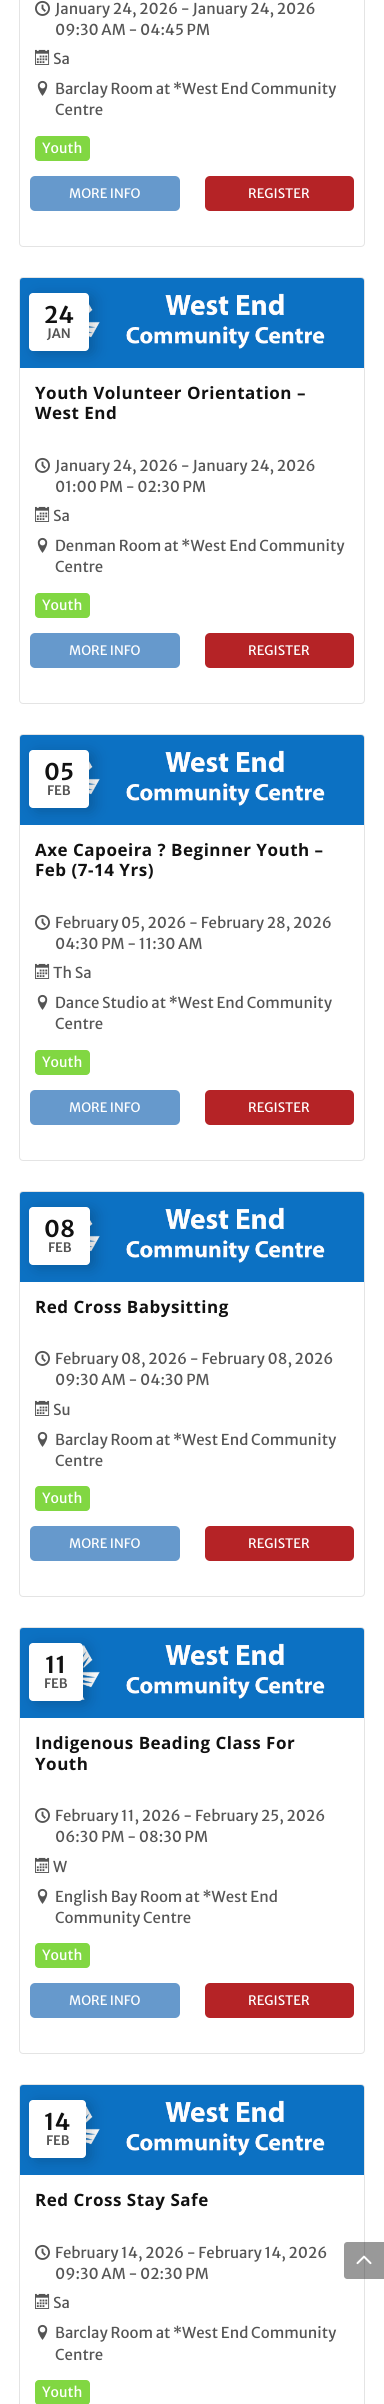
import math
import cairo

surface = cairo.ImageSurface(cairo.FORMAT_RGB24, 384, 2404)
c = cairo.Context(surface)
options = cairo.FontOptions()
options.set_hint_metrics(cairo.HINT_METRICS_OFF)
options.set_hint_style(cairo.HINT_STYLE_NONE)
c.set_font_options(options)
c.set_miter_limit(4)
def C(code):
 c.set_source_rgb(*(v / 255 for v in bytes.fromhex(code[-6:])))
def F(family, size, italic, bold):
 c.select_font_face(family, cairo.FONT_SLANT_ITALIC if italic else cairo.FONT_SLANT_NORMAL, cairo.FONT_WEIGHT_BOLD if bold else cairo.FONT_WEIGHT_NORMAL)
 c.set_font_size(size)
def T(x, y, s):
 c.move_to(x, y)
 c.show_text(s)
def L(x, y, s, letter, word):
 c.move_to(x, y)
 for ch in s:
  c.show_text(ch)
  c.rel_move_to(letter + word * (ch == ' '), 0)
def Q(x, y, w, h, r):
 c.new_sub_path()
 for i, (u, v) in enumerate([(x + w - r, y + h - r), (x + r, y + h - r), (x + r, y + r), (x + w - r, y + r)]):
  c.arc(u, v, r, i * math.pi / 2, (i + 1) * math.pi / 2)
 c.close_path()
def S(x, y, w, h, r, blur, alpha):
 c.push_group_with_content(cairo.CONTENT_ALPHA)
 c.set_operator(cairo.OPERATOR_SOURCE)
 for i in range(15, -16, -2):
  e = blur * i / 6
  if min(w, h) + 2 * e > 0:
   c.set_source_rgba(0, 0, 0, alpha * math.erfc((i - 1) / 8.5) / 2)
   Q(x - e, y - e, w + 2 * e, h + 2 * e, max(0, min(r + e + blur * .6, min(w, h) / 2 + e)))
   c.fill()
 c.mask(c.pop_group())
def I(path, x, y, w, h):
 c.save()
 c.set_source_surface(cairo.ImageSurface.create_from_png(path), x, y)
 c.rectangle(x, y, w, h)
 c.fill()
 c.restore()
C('ffffff')
c.paint()
Q(19.5,-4.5,345,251,3.5)
C('e4e4e4')
c.set_line_width(1)
c.stroke()
I('1.png',35,0,15,16)
F('Merriweather Sans',15,0,0)
C('555555')
T(55,14,'January 24, 2026 - January 24, 2026')
T(55,35,'09:30 AM - 04:45 PM')
I('2.png',35,49,15,16)
T(53,64,'Sa')
I('3.png',37,80,11,16)
T(55,94,'Barclay Room at *West End Community')
T(55,115,'Centre')
C('81d742')
Q(35,136,55,25,4)
c.fill()
F('Merriweather Sans',14,0,0)
C('ffffff')
T(42,153,'Youth')
C('6699cc')
Q(30,176,150,35,5)
c.fill()
F('Merriweather Sans',13,0,0)
C('ffffff')
T(69,198,'MORE INFO')
C('b52326')
Q(205,176,149,35,5)
c.fill()
C('ffffff')
T(248,198,'REGISTER')
Q(19.5,277.5,345,426,3.5)
C('e4e4e4')
c.stroke()
I('4.png',20,278,344,90)
C('000000')
S(34,296,60,58,4,7.5,.2)
C('ffffff')
Q(29,293,60,58,4)
c.fill()
F('Merriweather Sans SemiBold',23,0,0)
C('111111')
T(44,323,'24')
F('Merriweather Sans SemiBold',13,0,0)
C('555555')
T(47,338,'JAN')
F('Open Sans',17,0,1)
C('111111')
L(35,399,'Youth Volunteer Orientation –',.5,0)
L(35,419,'West End',.5,0)
I('1.png',35,457,15,16)
F('Merriweather Sans',15,0,0)
C('555555')
T(55,471,'January 24, 2026 - January 24, 2026')
T(55,492,'01:00 PM - 02:30 PM')
I('2.png',35,506,15,16)
T(53,521,'Sa')
I('3.png',37,537,11,16)
T(55,551,'Denman Room at *West End Community')
T(55,572,'Centre')
C('81d742')
Q(35,593,55,25,4)
c.fill()
F('Merriweather Sans',14,0,0)
C('ffffff')
T(42,610,'Youth')
C('6699cc')
Q(30,633,150,35,5)
c.fill()
F('Merriweather Sans',13,0,0)
C('ffffff')
T(69,655,'MORE INFO')
C('b52326')
Q(205,633,149,35,5)
c.fill()
C('ffffff')
T(248,655,'REGISTER')
Q(19.5,734.5,345,426,3.5)
C('e4e4e4')
c.stroke()
I('4.png',20,735,344,90)
C('000000')
S(34,753,60,58,4,7.5,.2)
C('ffffff')
Q(29,750,60,58,4)
c.fill()
F('Merriweather Sans SemiBold',23,0,0)
C('111111')
T(44,780,'05')
F('Merriweather Sans SemiBold',13,0,0)
C('555555')
T(47,795,'FEB')
F('Open Sans',17,0,1)
C('111111')
L(35,856,'Axe Capoeira ? Beginner Youth –',.5,0)
L(35,876,'Feb (7-14 Yrs)',.5,0)
I('1.png',35,914,15,16)
F('Merriweather Sans',15,0,0)
C('555555')
T(55,928,'February 05, 2026 - February 28, 2026')
T(55,949,'04:30 PM - 11:30 AM')
I('2.png',35,963,15,16)
T(53,978,'Th Sa')
I('3.png',37,994,11,16)
T(55,1008,'Dance Studio at *West End Community')
T(55,1029,'Centre')
C('81d742')
Q(35,1050,55,25,4)
c.fill()
F('Merriweather Sans',14,0,0)
C('ffffff')
T(42,1067,'Youth')
C('6699cc')
Q(30,1090,150,35,5)
c.fill()
F('Merriweather Sans',13,0,0)
C('ffffff')
T(69,1112,'MORE INFO')
C('b52326')
Q(205,1090,149,35,5)
c.fill()
C('ffffff')
T(248,1112,'REGISTER')
Q(19.5,1191.5,345,405,3.5)
C('e4e4e4')
c.stroke()
I('4.png',20,1192,344,90)
C('000000')
S(34,1210,61,58,4,7.5,.2)
C('ffffff')
Q(29,1207,61,58,4)
c.fill()
F('Merriweather Sans SemiBold',23,0,0)
C('111111')
T(44,1237,'08')
F('Merriweather Sans SemiBold',13,0,0)
C('555555')
T(48,1252,'FEB')
F('Open Sans',17,0,1)
C('111111')
L(35,1313,'Red Cross Babysitting',.5,0)
I('1.png',35,1350,15,16)
F('Merriweather Sans',15,0,0)
C('555555')
T(55,1364,'February 08, 2026 - February 08, 2026')
T(55,1385,'09:30 AM - 04:30 PM')
I('2.png',35,1400,15,16)
T(53,1415,'Su')
I('3.png',37,1431,11,16)
T(55,1445,'Barclay Room at *West End Community')
T(55,1466,'Centre')
C('81d742')
Q(35,1486,55,25,4)
c.fill()
F('Merriweather Sans',14,0,0)
C('ffffff')
T(42,1503,'Youth')
C('6699cc')
Q(30,1526,150,35,5)
c.fill()
F('Merriweather Sans',13,0,0)
C('ffffff')
T(69,1548,'MORE INFO')
C('b52326')
Q(205,1526,149,35,5)
c.fill()
C('ffffff')
T(248,1548,'REGISTER')
Q(19.5,1627.5,345,426,3.5)
C('e4e4e4')
c.stroke()
I('4.png',20,1628,344,90)
C('000000')
S(34,1646,54,58,4,7.5,.2)
C('ffffff')
Q(29,1643,54,58,4)
c.fill()
F('Merriweather Sans SemiBold',23,0,0)
C('111111')
T(45,1673,'11')
F('Merriweather Sans SemiBold',13,0,0)
C('555555')
T(44,1688,'FEB')
F('Open Sans',17,0,1)
C('111111')
L(35,1749,'Indigenous Beading Class For',.5,0)
L(35,1770,'Youth',.5,0)
I('1.png',35,1807,15,16)
F('Merriweather Sans',15,0,0)
C('555555')
T(55,1821,'February 11, 2026 - February 25, 2026')
T(55,1842,'06:30 PM - 08:30 PM')
I('2.png',35,1857,15,16)
T(53,1872,'W')
I('3.png',37,1888,11,16)
T(55,1902,'English Bay Room at *West End')
T(55,1923,'Community Centre')
C('81d742')
Q(35,1943,55,25,4)
c.fill()
F('Merriweather Sans',14,0,0)
C('ffffff')
T(42,1960,'Youth')
C('6699cc')
Q(30,1983,150,35,5)
c.fill()
F('Merriweather Sans',13,0,0)
C('ffffff')
T(69,2005,'MORE INFO')
C('b52326')
Q(205,1983,149,35,5)
c.fill()
C('ffffff')
T(248,2005,'REGISTER')
Q(19.5,2084.5,345,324,3.5)
C('e4e4e4')
c.stroke()
I('4.png',20,2085,344,90)
C('000000')
S(34,2103,57,58,4,7.5,.2)
C('ffffff')
Q(29,2100,57,58,4)
c.fill()
F('Merriweather Sans SemiBold',23,0,0)
C('111111')
T(44,2130,'14')
F('Merriweather Sans SemiBold',13,0,0)
C('555555')
T(46,2145,'FEB')
F('Open Sans',17,0,1)
C('111111')
L(35,2206,'Red Cross Stay Safe',.5,0)
I('1.png',35,2244,15,16)
F('Merriweather Sans',15,0,0)
C('555555')
T(55,2258,'February 14, 2026 - February 14, 2026')
T(55,2279,'09:30 AM - 02:30 PM')
I('2.png',35,2293,15,16)
T(53,2308,'Sa')
I('3.png',37,2324,11,16)
T(55,2338,'Barclay Room at *West End Community')
T(55,2360,'Centre')
C('81d742')
Q(35,2380,55,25,4)
c.fill()
F('Merriweather Sans',14,0,0)
C('ffffff')
T(42,2397,'Youth')
c.set_source_rgba(0,0,0,0.4)
c.new_path()
c.move_to(347,2242)
c.line_to(384,2242)
c.line_to(384,2279)
c.line_to(347,2279)
c.curve_to(345.5,2279,344,2277.5,344,2276)
c.line_to(344,2245)
c.curve_to(344,2243.5,345.5,2242,347,2242)
c.close_path()
c.fill()
I('5.png',356,2255,16,10)
surface.write_to_png('o.png')
